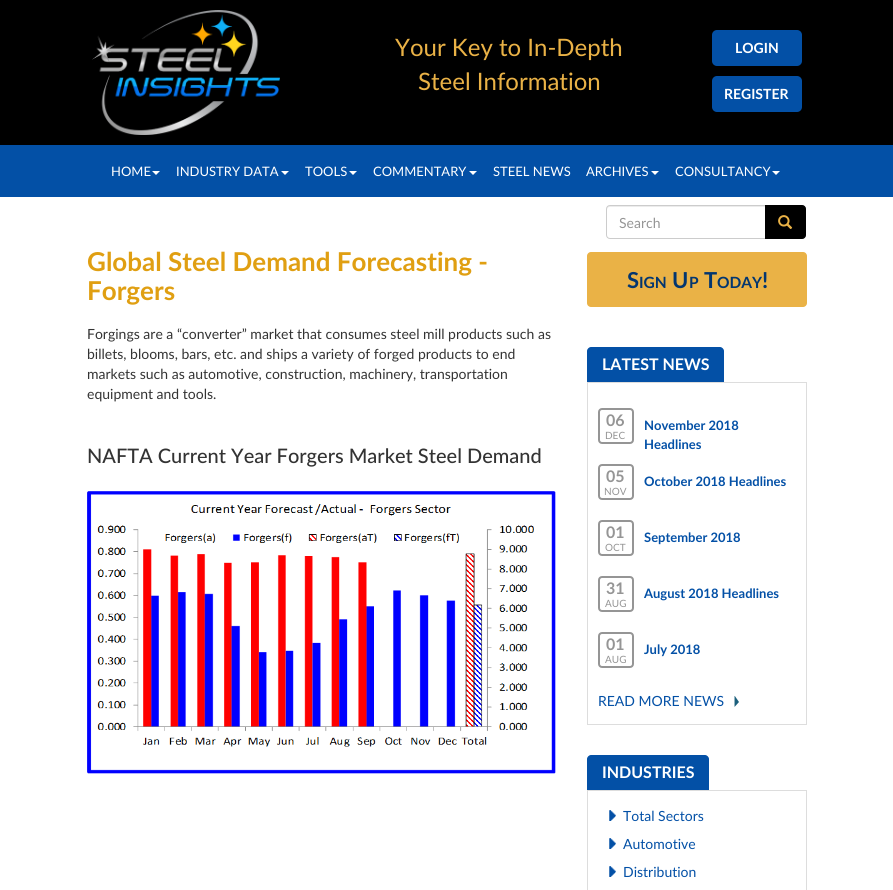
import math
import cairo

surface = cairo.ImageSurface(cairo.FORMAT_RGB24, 893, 890)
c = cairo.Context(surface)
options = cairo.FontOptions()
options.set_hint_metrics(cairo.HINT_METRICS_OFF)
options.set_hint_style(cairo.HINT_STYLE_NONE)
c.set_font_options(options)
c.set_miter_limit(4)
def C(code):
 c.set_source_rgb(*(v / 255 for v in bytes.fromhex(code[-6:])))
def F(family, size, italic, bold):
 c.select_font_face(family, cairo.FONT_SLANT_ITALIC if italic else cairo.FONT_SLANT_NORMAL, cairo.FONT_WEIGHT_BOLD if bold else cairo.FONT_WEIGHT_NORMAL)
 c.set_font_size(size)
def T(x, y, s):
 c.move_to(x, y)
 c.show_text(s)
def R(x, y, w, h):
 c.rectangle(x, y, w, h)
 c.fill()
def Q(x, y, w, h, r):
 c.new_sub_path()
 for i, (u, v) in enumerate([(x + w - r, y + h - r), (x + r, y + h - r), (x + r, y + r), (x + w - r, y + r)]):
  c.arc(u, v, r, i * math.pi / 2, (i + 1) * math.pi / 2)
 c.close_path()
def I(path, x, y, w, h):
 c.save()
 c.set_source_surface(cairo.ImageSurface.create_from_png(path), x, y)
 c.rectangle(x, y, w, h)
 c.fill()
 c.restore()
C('ffffff')
c.paint()
C('000000')
R(0,0,893,145)
I('1.png',92,10,188,125)
F('Lato',24,0,0)
C('eab246')
T(395,56,'Your Key to In-Depth')
T(418,90,'Steel Information')
C('0350a6')
Q(712,30,90,36,5)
c.fill()
F('Lato',14,0,1)
C('ffffff')
T(735,53,'LOGIN')
C('0350a6')
Q(712,76,90,36,5)
c.fill()
C('ffffff')
T(724,99,'REGISTER')
C('0350a6')
R(0,145,893,52)
F('Lato',13,0,0)
C('ffffff')
T(111,176,'HOME')
c.new_path()
c.move_to(152,171)
c.line_to(160,171)
c.line_to(156,175)
c.close_path()
c.fill()
T(176,176,'INDUSTRY DATA')
c.new_path()
c.move_to(281,171)
c.line_to(289,171)
c.line_to(285,175)
c.close_path()
c.fill()
T(305,176,'TOOLS')
c.new_path()
c.move_to(349,171)
c.line_to(357,171)
c.line_to(353,175)
c.close_path()
c.fill()
T(373,176,'COMMENTARY')
c.new_path()
c.move_to(469,171)
c.line_to(477,171)
c.line_to(473,175)
c.close_path()
c.fill()
T(493,176,'STEEL NEWS')
T(586,176,'ARCHIVES')
c.new_path()
c.move_to(651,171)
c.line_to(659,171)
c.line_to(655,175)
c.close_path()
c.fill()
T(675,176,'CONSULTANCY')
c.new_path()
c.move_to(772,171)
c.line_to(780,171)
c.line_to(776,175)
c.close_path()
c.fill()
C('ececec')
c.new_path()
c.move_to(610,207)
c.line_to(765,207)
c.line_to(765,206)
c.line_to(609,206)
c.curve_to(607,206,607,208,607,210)
c.curve_to(607,208,608,207,610,207)
c.close_path()
c.fill()
c.new_path()
c.move_to(610,205.5)
c.line_to(765.5,205.5)
c.line_to(765.5,238.5)
c.line_to(610,238.5)
c.curve_to(608,238.5,606.5,237,606.5,235)
c.line_to(606.5,209)
c.curve_to(606.5,207,608,205.5,610,205.5)
c.close_path()
C('cccccc')
c.set_line_width(1)
c.stroke()
F('Lato',14,0,0)
C('959595')
T(619,228,'Search')
C('000000')
c.new_path()
c.move_to(765.5,205.5)
c.line_to(802,205.5)
c.curve_to(804,205.5,805.5,207,805.5,209)
c.line_to(805.5,235)
c.curve_to(805.5,237,804,238.5,802,238.5)
c.line_to(765.5,238.5)
c.close_path()
c.fill_preserve()
c.stroke()
I('2.png',778,215,15,14)
F('Lato',26,0,1)
C('e09f12')
T(87,271,'Global Steel Demand Forecasting -')
T(87,300,'Forgers')
F('Lato',14,0,0)
C('333333')
T(87,339,'Forgings are a “converter” market that consumes steel mill products such as')
T(87,359,'billets, blooms, bars, etc. and ships a variety of forged products to end')
T(87,379,'markets such as automotive, construction, machinery, transportation')
T(87,399,'equipment and tools.')
F('Lato Medium',20,0,0)
T(87,463,'NAFTA Current Year Forgers Market Steel Demand')
I('3.png',87,491,469,283)
C('eab246')
Q(587,252,220,55,4)
c.fill()
F('Lato',22,0,1)
C('03366f')
T(627,288,'S')
F('Lato',15.5,0,1)
T(639,288,'IGN')
F('Lato',22,0,1)
T(672,288,'U')
F('Lato',15.5,0,1)
T(689,288,'P')
F('Lato',22,0,1)
T(704,288,'T')
F('Lato',15.5,0,1)
T(717,288,'ODAY')
F('Lato',22,0,1)
T(762,288,'!')
C('0350a6')
c.new_path()
c.move_to(591,347)
c.line_to(720,347)
c.curve_to(722,347,724,349,724,351)
c.line_to(724,382)
c.line_to(587,382)
c.line_to(587,351)
c.curve_to(587,349,589,347,591,347)
c.close_path()
c.fill()
F('Lato',16,0,1)
C('ffffff')
T(602,370,'LATEST NEWS')
c.rectangle(587.5,382.5,219,342)
C('dddddd')
c.stroke()
Q(599,409,34,34,3)
C('959595')
c.set_line_width(2)
c.stroke()
T(606,426,'06')
F('Lato',10,0,0)
T(605,439,'DEC')
F('Lato',13,0,1)
C('0350a6')
T(644,430,'November 2018')
T(644,449,'Headlines')
Q(599,465,34,34,3)
C('959595')
c.stroke()
F('Lato',16,0,1)
T(606,482,'05')
F('Lato',10,0,0)
T(604,495,'NOV')
F('Lato',13,0,1)
C('0350a6')
T(644,486,'October 2018 Headlines')
Q(599,521,34,34,3)
C('959595')
c.stroke()
F('Lato',16,0,1)
T(606,538,'01')
F('Lato',10,0,0)
T(605,551,'OCT')
F('Lato',13,0,1)
C('0350a6')
T(644,542,'September 2018')
Q(599,577,34,34,3)
C('959595')
c.stroke()
F('Lato',16,0,1)
T(606,594,'31')
F('Lato',10,0,0)
T(605,607,'AUG')
F('Lato',13,0,1)
C('0350a6')
T(644,598,'August 2018 Headlines')
Q(599,633,34,34,3)
C('959595')
c.stroke()
F('Lato',16,0,1)
T(606,650,'01')
F('Lato',10,0,0)
T(605,663,'AUG')
F('Lato',13,0,1)
C('0350a6')
T(644,654,'July 2018')
I('4.png',734,696,5,11)
F('Lato',14,0,0)
T(598,706,'READ MORE NEWS')
c.new_path()
c.move_to(591,755)
c.line_to(705,755)
c.curve_to(707,755,709,757,709,759)
c.line_to(709,790)
c.line_to(587,790)
c.line_to(587,759)
c.curve_to(587,757,589,755,591,755)
c.close_path()
c.fill()
F('Lato',16,0,1)
C('ffffff')
T(602,778,'INDUSTRIES')
c.rectangle(587.5,790.5,219,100)
C('dddddd')
c.set_line_width(1)
c.stroke()
I('5.png',609,810,7,11)
F('Lato',14,0,0)
C('0350a6')
T(623,821,'Total Sectors')
I('5.png',609,838,7,11)
T(623,849,'Automotive')
I('5.png',609,866,7,11)
T(623,877,'Distribution')
surface.write_to_png('o.png')
